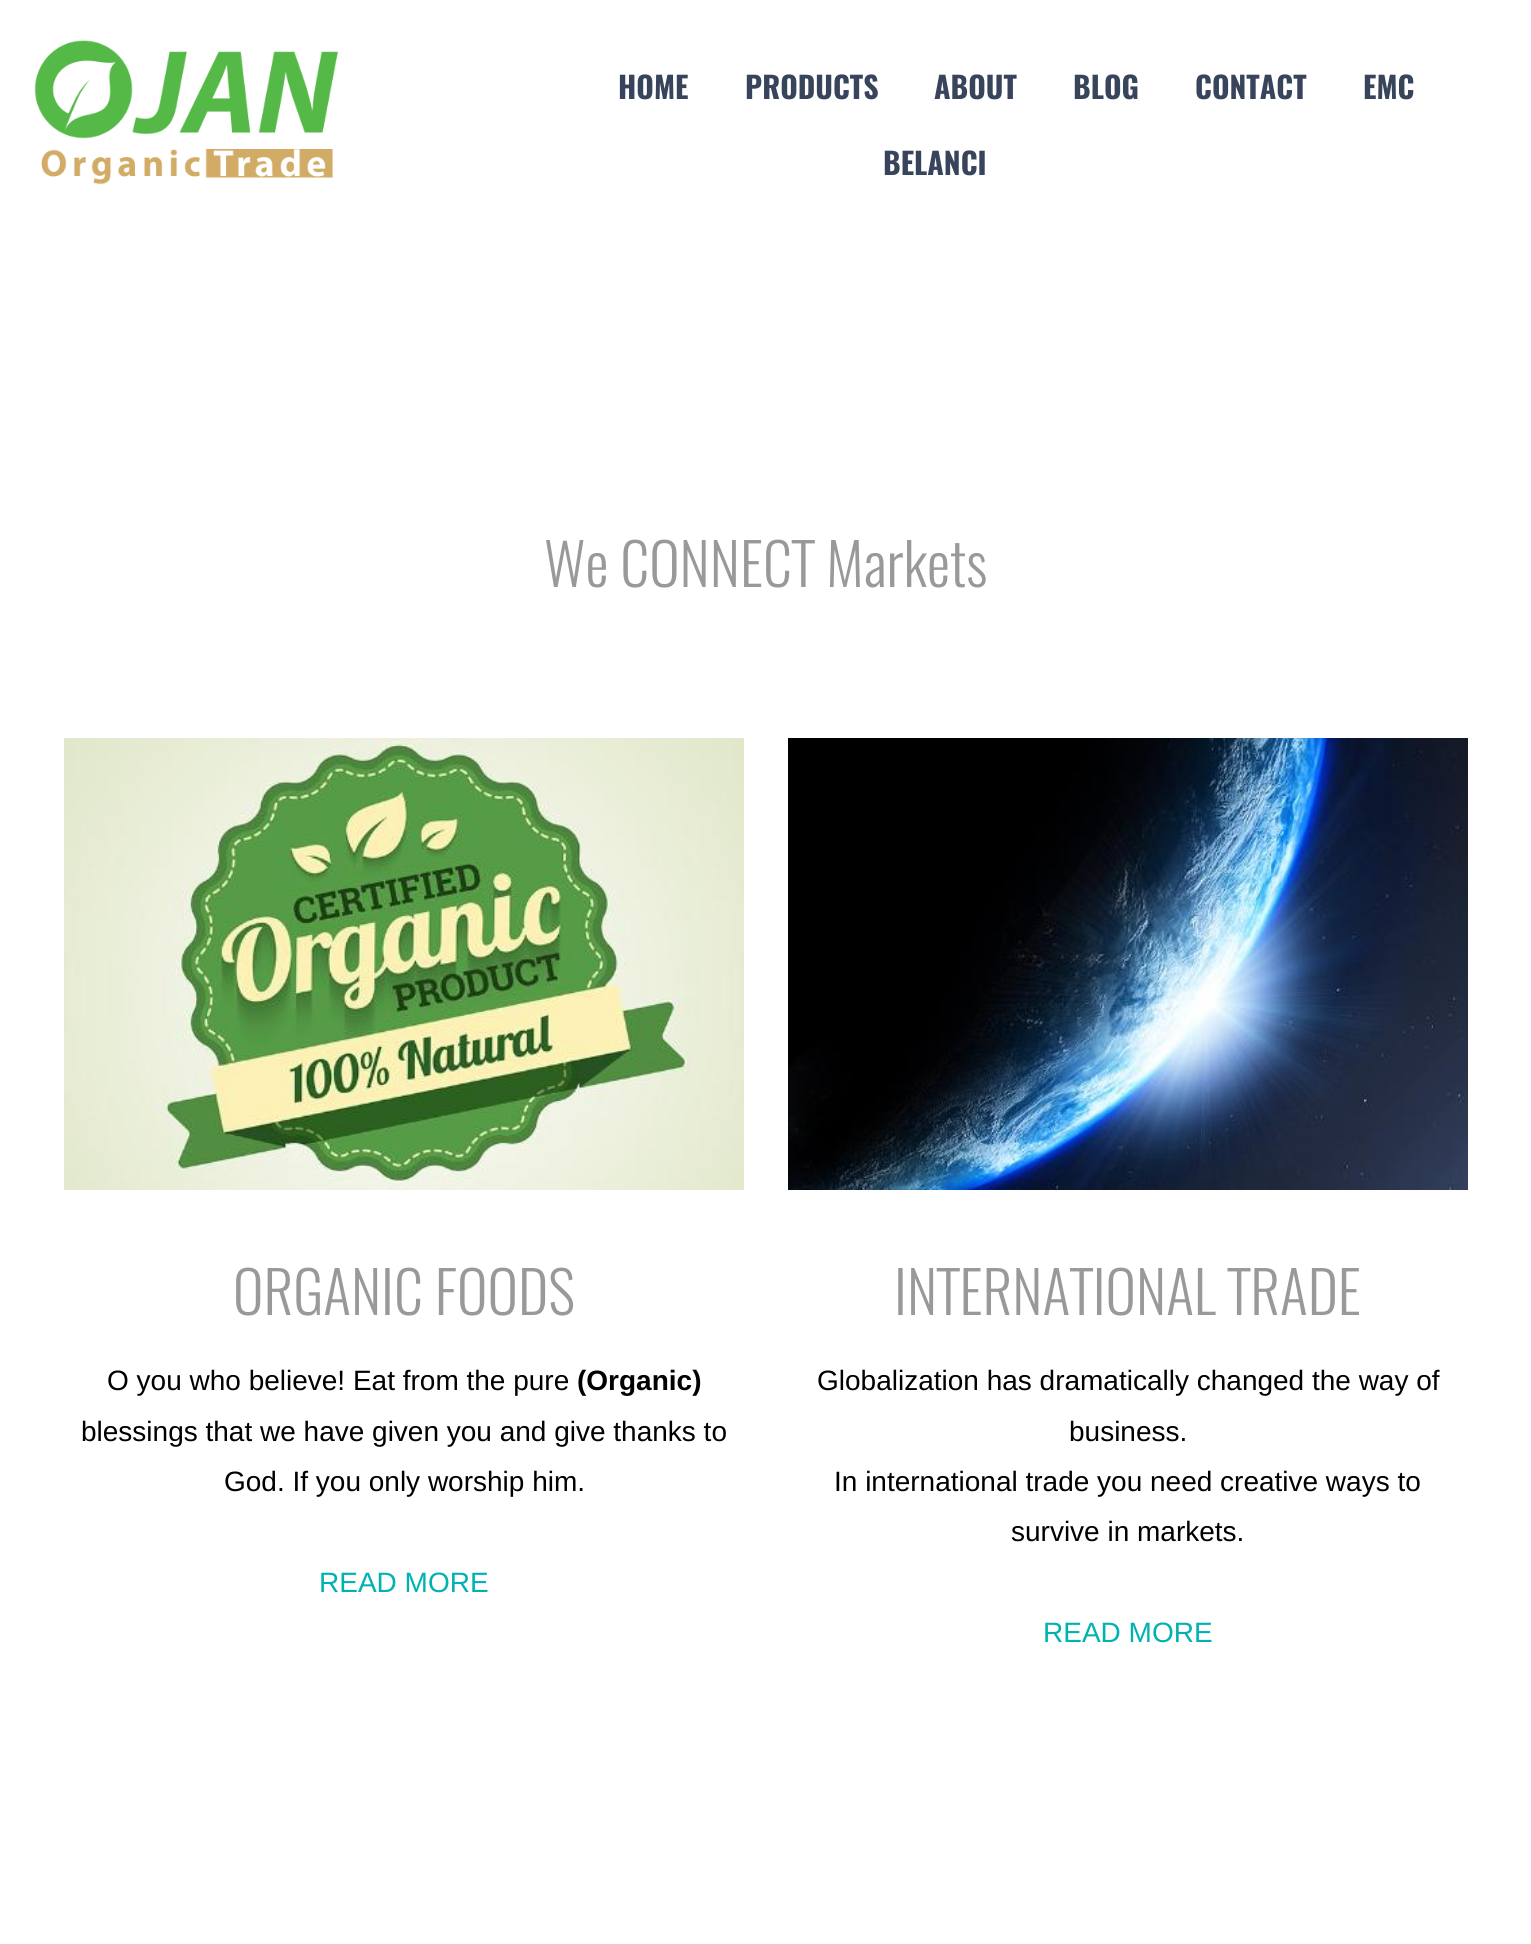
import math
import cairo

surface = cairo.ImageSurface(cairo.FORMAT_RGB24, 1531, 1944)
c = cairo.Context(surface)
options = cairo.FontOptions()
options.set_hint_metrics(cairo.HINT_METRICS_OFF)
options.set_hint_style(cairo.HINT_STYLE_NONE)
c.set_font_options(options)
c.set_miter_limit(4)
def C(code):
 c.set_source_rgb(*(v / 255 for v in bytes.fromhex(code[-6:])))
def F(family, size, italic, bold):
 c.select_font_face(family, cairo.FONT_SLANT_ITALIC if italic else cairo.FONT_SLANT_NORMAL, cairo.FONT_WEIGHT_BOLD if bold else cairo.FONT_WEIGHT_NORMAL)
 c.set_font_size(size)
def T(x, y, s):
 c.move_to(x, y)
 c.show_text(s)
def I(path, x, y, w, h):
 c.save()
 c.set_source_surface(cairo.ImageSurface.create_from_png(path), x, y)
 c.rectangle(x, y, w, h)
 c.fill()
 c.restore()
C('ffffff')
c.paint()
I('1.png',34,40,304,145)
F('Oswald',30,0,1)
C('38445b')
T(618,99,'HOME')
T(745,99,'PRODUCTS')
T(934,99,'ABOUT')
T(1073,99,'BLOG')
T(1195,99,'CONTACT')
T(1363,99,'EMC')
T(883,175,'BELANCI')
F('Oswald Light',58,0,0)
C('999999')
T(544,587,'We CONNECT Markets')
I('2.png',64,738,680,452)
I('3.png',788,738,680,452)
T(233,1315,'ORGANIC FOODS')
F('Liberation Sans',28,0,0)
C('000000')
T(107,1390,'O you who believe! Eat from the pure')
F('Liberation Sans',28,0,1)
T(577,1390,'(Organic)')
F('Liberation Sans',28,0,0)
T(81,1441,'blessings that we have given you and give thanks to')
T(224,1491,'God. If you only worship him.')
C('00b2b2')
T(319,1592,'READ MORE')
F('Oswald Light',58,0,0)
C('999999')
T(894,1315,'INTERNATIONAL TRADE')
F('Liberation Sans',28,0,0)
C('000000')
T(817,1390,'Globalization has dramatically changed the way of')
T(1069,1441,'business.')
T(834,1491,'In international trade you need creative ways to')
T(1011,1541,'survive in markets.')
C('00b2b2')
T(1043,1642,'READ MORE')
surface.write_to_png('o.png')
